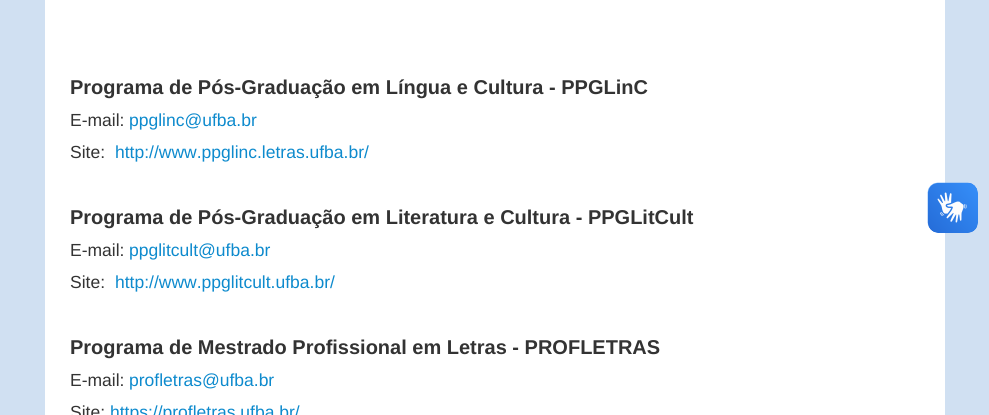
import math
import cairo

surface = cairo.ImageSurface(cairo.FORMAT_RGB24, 989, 415)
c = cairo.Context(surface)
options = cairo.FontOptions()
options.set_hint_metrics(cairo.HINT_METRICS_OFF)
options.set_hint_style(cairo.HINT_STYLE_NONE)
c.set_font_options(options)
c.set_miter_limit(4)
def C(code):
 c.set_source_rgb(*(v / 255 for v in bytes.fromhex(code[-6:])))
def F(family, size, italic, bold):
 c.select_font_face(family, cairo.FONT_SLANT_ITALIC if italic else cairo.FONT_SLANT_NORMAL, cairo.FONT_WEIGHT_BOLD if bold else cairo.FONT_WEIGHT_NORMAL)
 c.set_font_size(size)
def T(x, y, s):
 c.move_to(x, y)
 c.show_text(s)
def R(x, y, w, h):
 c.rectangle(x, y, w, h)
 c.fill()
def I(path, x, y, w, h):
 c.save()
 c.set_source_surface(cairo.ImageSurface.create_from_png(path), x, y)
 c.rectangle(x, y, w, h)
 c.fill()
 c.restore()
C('d0e0f2')
c.paint()
C('ffffff')
R(45,0,900,415)
F('Liberation Sans',20,0,1)
C('333333')
T(70,94,'Programa de Pós-Graduação em Língua e Cultura - PPGLinC')
F('Liberation Sans',17.5,0,0)
T(70,126,'E-mail:')
C('0d8acd')
T(129,126,'ppglinc@ufba.br')
C('333333')
T(70,158,'Site:')
C('0d8acd')
T(115,158,'http://www.ppglinc.letras.ufba.br/')
F('Liberation Sans',20,0,1)
C('333333')
T(70,224,'Programa de Pós-Graduação em Literatura e Cultura - PPGLitCult')
F('Liberation Sans',17.5,0,0)
T(70,256,'E-mail:')
C('0d8acd')
T(129,256,'ppglitcult@ufba.br')
C('333333')
T(70,288,'Site:')
C('0d8acd')
T(115,288,'http://www.ppglitcult.ufba.br/')
F('Liberation Sans',20,0,1)
C('333333')
T(70,354,'Programa de Mestrado Profissional em Letras - PROFLETRAS')
F('Liberation Sans',17.5,0,0)
T(70,386,'E-mail:')
C('0d8acd')
T(129,386,'profletras@ufba.br')
C('333333')
T(70,418,'Site:')
C('0d8acd')
T(110,418,'https://profletras.ufba.br/')
I('1.png',927,182,51,51)
I('2.png',928,183,50,50)
surface.write_to_png('o.png')
